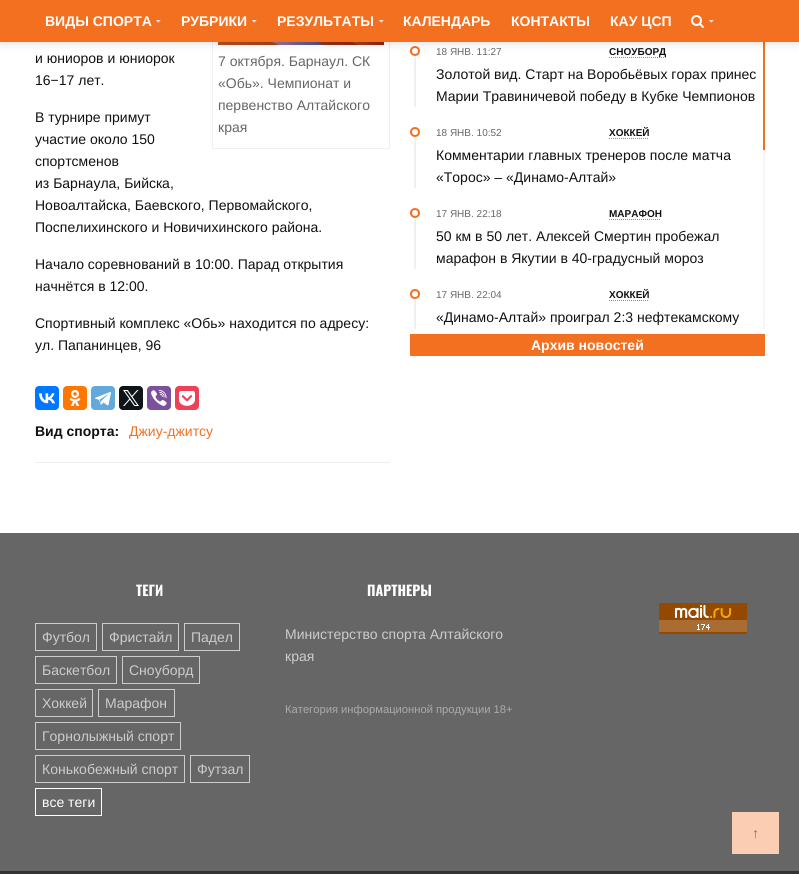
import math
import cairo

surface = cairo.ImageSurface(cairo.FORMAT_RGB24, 799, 874)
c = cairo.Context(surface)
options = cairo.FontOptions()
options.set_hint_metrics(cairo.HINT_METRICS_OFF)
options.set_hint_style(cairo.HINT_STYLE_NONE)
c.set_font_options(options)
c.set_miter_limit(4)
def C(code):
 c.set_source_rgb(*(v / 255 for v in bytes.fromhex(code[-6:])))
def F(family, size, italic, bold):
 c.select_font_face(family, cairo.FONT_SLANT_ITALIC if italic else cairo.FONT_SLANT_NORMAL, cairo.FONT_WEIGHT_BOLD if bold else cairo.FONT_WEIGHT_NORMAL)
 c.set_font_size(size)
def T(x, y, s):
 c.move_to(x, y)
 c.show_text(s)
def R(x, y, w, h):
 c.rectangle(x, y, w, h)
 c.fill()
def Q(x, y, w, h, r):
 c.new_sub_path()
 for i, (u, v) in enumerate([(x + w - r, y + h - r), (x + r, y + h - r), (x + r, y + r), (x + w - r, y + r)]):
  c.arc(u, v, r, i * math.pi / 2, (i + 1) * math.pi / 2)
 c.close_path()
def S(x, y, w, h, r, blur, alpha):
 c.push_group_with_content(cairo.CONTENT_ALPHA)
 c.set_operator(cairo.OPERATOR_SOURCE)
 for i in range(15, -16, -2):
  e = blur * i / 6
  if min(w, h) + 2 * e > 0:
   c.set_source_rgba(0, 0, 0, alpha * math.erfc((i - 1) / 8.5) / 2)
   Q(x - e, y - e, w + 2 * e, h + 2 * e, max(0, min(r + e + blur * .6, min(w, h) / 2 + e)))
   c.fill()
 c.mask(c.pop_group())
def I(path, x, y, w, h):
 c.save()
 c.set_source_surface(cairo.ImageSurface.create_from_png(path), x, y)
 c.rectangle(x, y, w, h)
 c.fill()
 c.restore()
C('ffffff')
c.paint()
c.rectangle(212.5,-.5,177,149)
C('f0f0f0')
c.set_line_width(1)
c.stroke()
I('3.png',218,42,166,3)
R(414,56,2,51)
c.arc(415,51,4,0,2 * math.pi)
C('f37021')
c.set_line_width(2)
c.stroke()
c.new_path()
c.move_to(609,57.5)
c.line_to(666,57.5)
c.set_line_width(1)
c.set_dash([1,1])
c.stroke()
R(763,42,2,108)
C('222222')
S(0,0,799,42,0,5,.2)
C('f37021')
R(0,0,799,42)
F('Liberation Sans',14,0,1)
C('ffffff')
T(45,26,'ВИДЫ СПОРТА')
I('1.png',156,20,5,3)
T(181,26,'РУБРИКИ')
I('1.png',252,20,5,3)
T(277,26,'РЕЗУЛЬТАТЫ')
I('1.png',379,20,5,3)
T(403,26,'КАЛЕНДАРЬ')
T(511,26,'КОНТАКТЫ')
T(610,26,'КАУ ЦСП')
I('2.png',691,15,13,13)
I('1.png',709,20,5,3)
F('Liberation Sans',14,0,0)
C('111111')
T(35,63,'и юниоров и юниорок')
T(35,85,'16−17 лет.')
T(35,122,'В турнире примут')
T(35,144,'участие около 150')
T(35,166,'спортсменов')
T(35,188,'из Барнаула, Бийска,')
T(35,210,'Новоалтайска, Баевского, Первомайского,')
T(35,232,'Поспелихинского и Новичихинского района.')
T(35,269,'Начало соревнований в 10:00. Парад открытия')
T(35,291,'начнётся в 12:00.')
T(35,328,'Спортивный комплекс «Обь» находится по адресу:')
T(35,350,'ул. Папанинцев, 96')
C('666666')
T(218,66,'7 октября. Барнаул. СК')
T(218,88,'«Обь». Чемпионат и')
T(218,110,'первенство Алтайского')
T(218,132,'края')
C('0077ff')
Q(35,386,24,24,4)
c.fill()
I('4.png',39,393,16,11)
C('ff7700')
Q(63,386,24,24,4)
c.fill()
I('5.png',69,390,12,16)
C('64a9dc')
Q(91,386,24,24,4)
c.fill()
I('6.png',95,392,16,14)
C('0f1419')
Q(119,386,24,24,4)
c.fill()
I('7.png',123,390,16,16)
C('7b519d')
Q(147,386,24,24,4)
c.fill()
I('8.png',151,390,16,16)
C('ee4056')
Q(175,386,24,24,4)
c.fill()
I('9.png',179,391,16,15)
F('Liberation Sans',14,0,1)
C('111111')
T(35,436,'Вид спорта:')
F('Liberation Sans',14,0,0)
C('f37021')
T(129,436,'Джиу-джитсу')
C('eeeeee')
R(35,462,355,1)
F('Liberation Sans',10,0,0)
C('666666')
T(436,55,'18 ЯНВ. 11:27')
F('Liberation Sans',10,0,1)
C('111111')
T(609,55,'СНОУБОРД')
F('Liberation Sans',14,0,0)
T(436,79,'Золотой вид. Старт на Воробьёвых горах принес')
T(436,101,'Марии Травиничевой победу в Кубке Чемпионов')
C('f0f0f0')
R(414,137,2,51)
c.new_path()
c.arc(415,132,4,0,2 * math.pi)
C('f37021')
c.set_line_width(2)
c.set_dash([])
c.stroke()
F('Liberation Sans',10,0,0)
C('666666')
T(436,136,'18 ЯНВ. 10:52')
F('Liberation Sans',10,0,1)
C('111111')
T(609,136,'ХОККЕЙ')
c.new_path()
c.move_to(609,138.5)
c.line_to(649,138.5)
C('f37021')
c.set_line_width(1)
c.set_dash([1,1])
c.stroke()
F('Liberation Sans',14,0,0)
C('111111')
T(436,160,'Комментарии главных тренеров после матча')
T(436,182,'«Торос» – «Динамо-Алтай»')
C('f0f0f0')
R(414,218,2,51)
c.new_path()
c.arc(415,213,4,0,2 * math.pi)
C('f37021')
c.set_line_width(2)
c.set_dash([])
c.stroke()
F('Liberation Sans',10,0,0)
C('666666')
T(436,217,'17 ЯНВ. 22:18')
F('Liberation Sans',10,0,1)
C('111111')
T(609,217,'МАРАФОН')
c.new_path()
c.move_to(609,219.5)
c.line_to(661,219.5)
C('f37021')
c.set_line_width(1)
c.set_dash([1,1])
c.stroke()
F('Liberation Sans',14,0,0)
C('111111')
T(436,241,'50 км в 50 лет. Алексей Смертин пробежал')
T(436,263,'марафон в Якутии в 40-градусный мороз')
C('f0f0f0')
R(414,299,2,30)
c.new_path()
c.arc(415,294,4,0,2 * math.pi)
C('f37021')
c.set_line_width(2)
c.set_dash([])
c.stroke()
F('Liberation Sans',10,0,0)
C('666666')
T(436,298,'17 ЯНВ. 22:04')
F('Liberation Sans',10,0,1)
C('111111')
T(609,298,'ХОККЕЙ')
c.new_path()
c.move_to(609,300.5)
c.line_to(649,300.5)
C('f37021')
c.set_line_width(1)
c.set_dash([1,1])
c.stroke()
F('Liberation Sans',14,0,0)
C('111111')
T(436,322,'«Динамо-Алтай» проиграл 2:3 нефтекамскому')
C('f5f5f5')
R(763,150,2,179)
C('f37021')
R(410,334,355,22)
F('Liberation Sans',14,0,1)
C('ffffff')
T(531,350,'Архив новостей')
C('666666')
R(0,533,799,338)
F('Oswald',14,0,1)
C('ffffff')
T(136,596,'ТЕГИ')
c.rectangle(35.5,623.5,61,27)
C('cccccc')
c.set_dash([])
c.stroke()
F('Liberation Sans',14,0,0)
T(42,642,'Футбол')
c.rectangle(102.5,623.5,76,27)
c.stroke()
T(109,642,'Фристайл')
c.rectangle(184.5,623.5,55,27)
c.stroke()
T(191,642,'Падел')
c.rectangle(35.5,656.5,81,27)
c.stroke()
T(42,675,'Баскетбол')
c.rectangle(122.5,656.5,77,27)
c.stroke()
T(129,675,'Сноуборд')
c.rectangle(35.5,689.5,57,27)
c.stroke()
T(42,708,'Хоккей')
c.rectangle(98.5,689.5,76,27)
c.stroke()
T(105,708,'Марафон')
c.rectangle(35.5,722.5,145,27)
c.stroke()
T(42,741,'Горнолыжный спорт')
c.rectangle(35.5,755.5,149,27)
c.stroke()
T(42,774,'Конькобежный спорт')
c.rectangle(190.5,755.5,59,27)
c.stroke()
T(197,774,'Футзал')
c.rectangle(35.5,788.5,66,27)
C('ffffff')
c.stroke()
T(42,807,'все теги')
F('Oswald',14,0,1)
T(367,596,'ПАРТНЕРЫ')
F('Liberation Sans',14,0,0)
C('cccccc')
T(285,639,'Министерство спорта Алтайского')
T(285,661,'края')
F('Liberation Sans',11.2,0,0)
C('a8abad')
T(285,713,'Категория информационной продукции 18+')
I('10.png',659,603,88,31)
C('333333')
R(0,871,799,3)
C('fbcdb2')
R(732,812,47,42)
F('Liberation Sans',14,0,0)
C('d5580c')
T(752,838,'↑')
surface.write_to_png('o.png')
